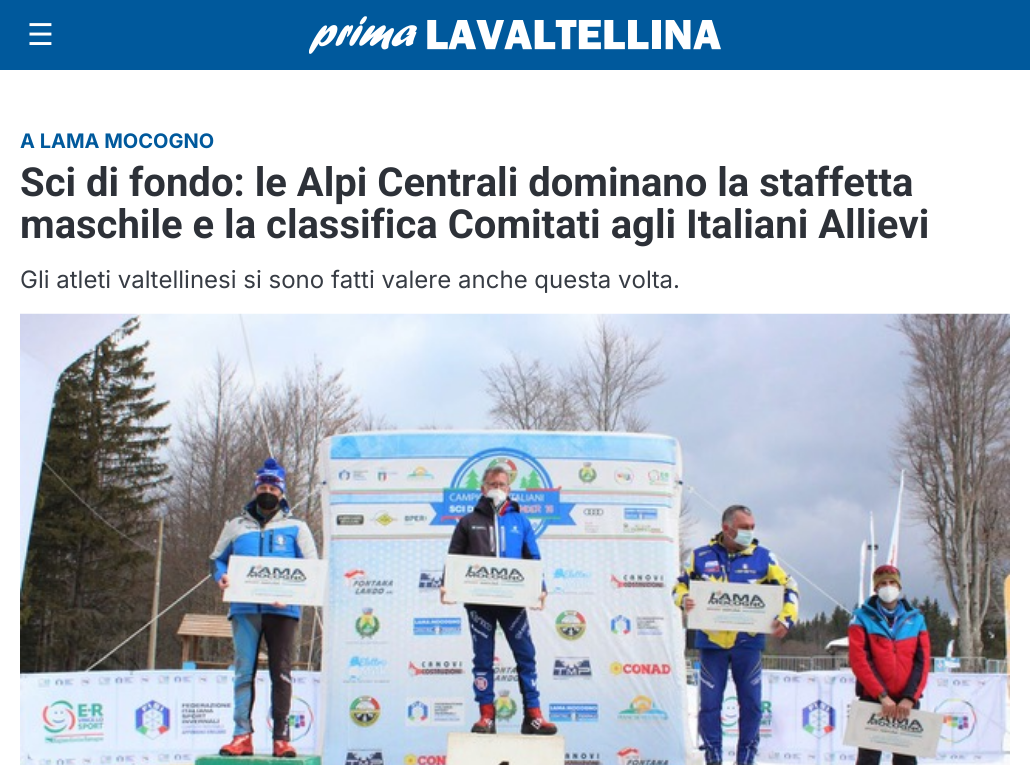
import math
import cairo

surface = cairo.ImageSurface(cairo.FORMAT_RGB24, 1030, 765)
c = cairo.Context(surface)
options = cairo.FontOptions()
options.set_hint_metrics(cairo.HINT_METRICS_OFF)
options.set_hint_style(cairo.HINT_STYLE_NONE)
c.set_font_options(options)
c.set_miter_limit(4)
def C(code):
 c.set_source_rgb(*(v / 255 for v in bytes.fromhex(code[-6:])))
def F(family, size, italic, bold):
 c.select_font_face(family, cairo.FONT_SLANT_ITALIC if italic else cairo.FONT_SLANT_NORMAL, cairo.FONT_WEIGHT_BOLD if bold else cairo.FONT_WEIGHT_NORMAL)
 c.set_font_size(size)
def T(x, y, s):
 c.move_to(x, y)
 c.show_text(s)
def R(x, y, w, h):
 c.rectangle(x, y, w, h)
 c.fill()
def I(path, x, y, w, h):
 c.save()
 c.set_source_surface(cairo.ImageSurface.create_from_png(path), x, y)
 c.rectangle(x, y, w, h)
 c.fill()
 c.restore()
C('ffffff')
c.paint()
C('00599c')
R(0,0,1030,70)
F('DejaVu Sans',30,0,0)
C('ffffff')
T(27,45,'☰')
I('1.png',309,16,412,38)
F('Inter',20,0,1)
C('00599c')
T(20,148,'A LAMA MOCOGNO')
F('Roboto',40,0,1)
C('2d3138')
T(20,196,'Sci di fondo: le Alpi Centrali dominano la staffetta')
T(20,238,'maschile e la classifica Comitati agli Italiani Allievi')
F('Inter',24,0,0)
C('373c44')
T(20,288,'Gli atleti valtellinesi si sono fatti valere anche questa volta.')
I('2.png',20,313,990,452)
surface.write_to_png('o.png')
